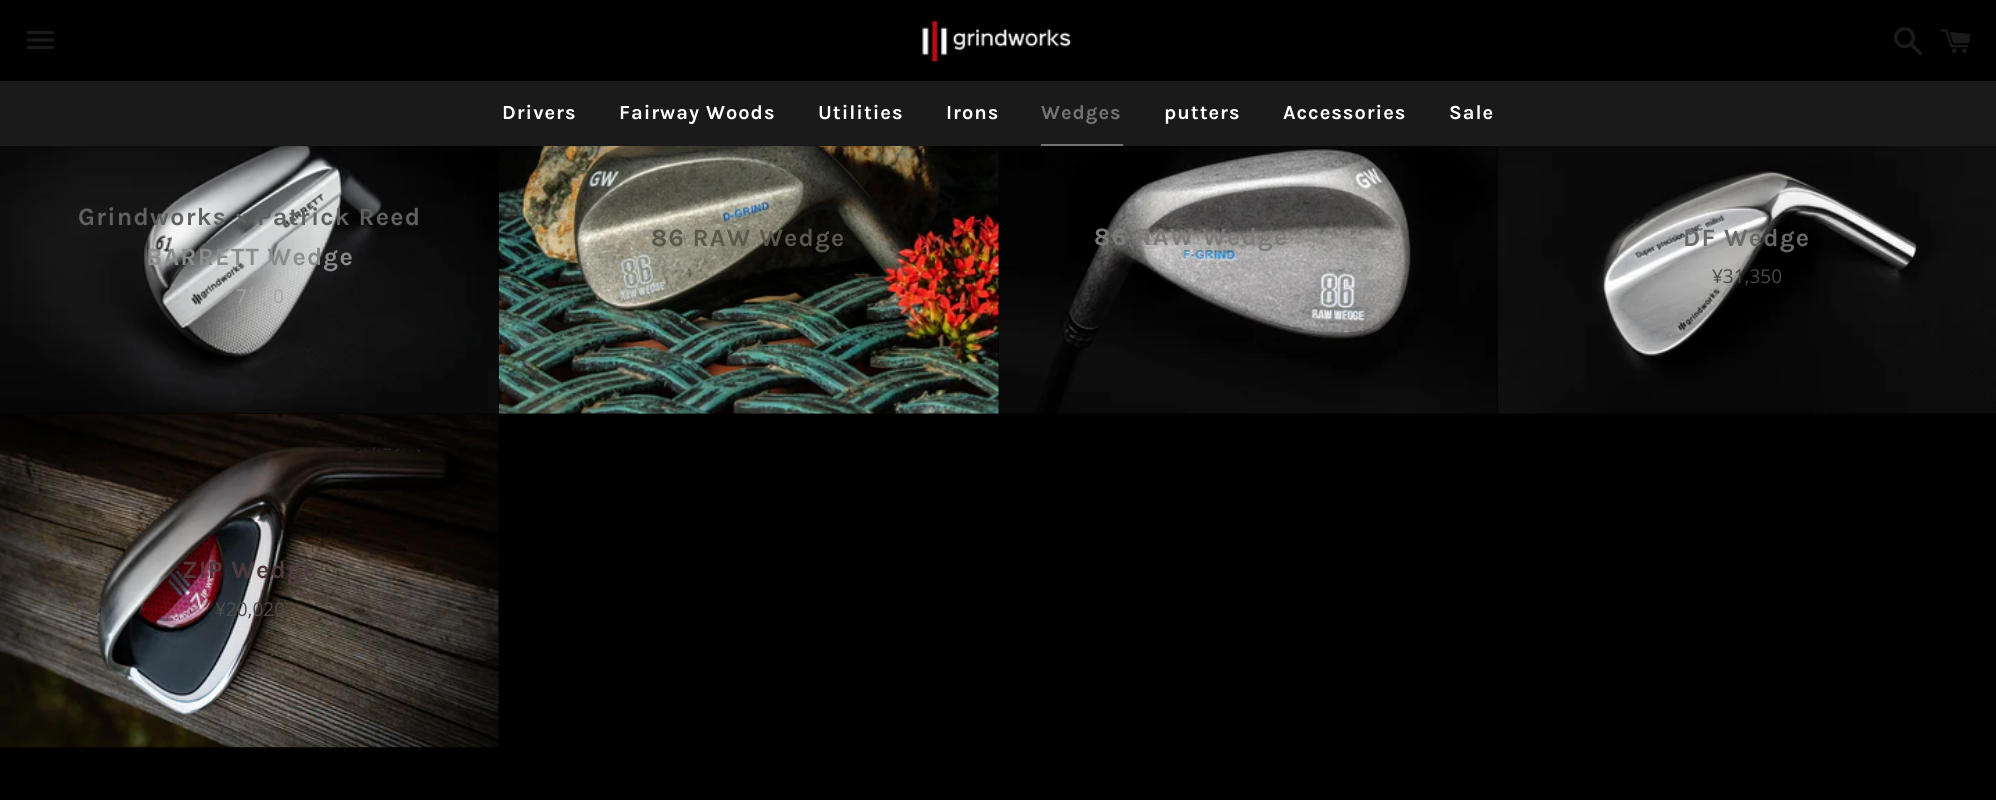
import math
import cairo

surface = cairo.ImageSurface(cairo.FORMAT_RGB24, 1996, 800)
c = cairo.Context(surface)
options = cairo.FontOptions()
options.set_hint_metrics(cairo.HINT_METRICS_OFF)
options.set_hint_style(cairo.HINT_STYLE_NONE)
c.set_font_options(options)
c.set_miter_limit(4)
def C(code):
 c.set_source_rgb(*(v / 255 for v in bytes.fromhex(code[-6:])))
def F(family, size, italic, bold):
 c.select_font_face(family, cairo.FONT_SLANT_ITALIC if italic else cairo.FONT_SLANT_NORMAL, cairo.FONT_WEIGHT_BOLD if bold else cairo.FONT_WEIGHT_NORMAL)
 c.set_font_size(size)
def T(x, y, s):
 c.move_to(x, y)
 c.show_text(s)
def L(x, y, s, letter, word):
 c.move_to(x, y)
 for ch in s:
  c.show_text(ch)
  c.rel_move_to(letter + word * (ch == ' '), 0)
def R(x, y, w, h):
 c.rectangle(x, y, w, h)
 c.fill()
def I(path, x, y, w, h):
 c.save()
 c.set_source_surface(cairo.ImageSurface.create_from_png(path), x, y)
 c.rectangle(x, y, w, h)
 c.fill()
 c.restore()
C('000000')
c.paint()
I('1.png',26,31,28,18)
I('2.png',922,21,150,41)
I('3.png',1894,27,28,28)
I('4.png',1940,29,30,24)
C('1a1a1a')
R(0,81,1996,65)
F('Karla',20,0,1)
C('ffffff')
L(502,119,'Drivers',1,0)
L(619,119,'Fairway Woods',1,0)
L(818,119,'Utilities',1,0)
L(946,119,'Irons',1,0)
C('747373')
L(1041,119,'Wedges',1,0)
R(1041,144,82,2)
C('ffffff')
L(1164,119,'putters',1,0)
L(1283,119,'Accessories',1,0)
L(1449,119,'Sale',1,0)
I('5.png',0,146,499,268)
F('Karla',25,0,1)
C('606161')
L(78,225,'Grindworks × Patrick Reed',1.25,0)
C('8a8c8c')
L(146,265,'BARRETT Wedge',1.25,0)
F('Open Sans',19,0,0)
C('a4a5a5')
T(236,303,'7')
T(273,303,'0')
I('6.png',498,146,501,268)
F('Karla',25,0,1)
C('59574c')
L(651,246,'86 RAW Wedge',1.25,0)
I('7.png',998,146,499,268)
C('7c7a79')
L(1094,245,'86 RAW Wedge',1.25,0)
I('8.png',1497,146,499,268)
C('686868')
L(1683,246,'DF Wedge',1.25,0)
F('Open Sans',19,0,0)
C('474746')
T(1712,283,'¥31,350')
I('9.png',0,414,499,334)
F('Karla',25,0,1)
C('50393c')
L(182,578,'ZIP Wedge',1.25,0)
F('Open Sans',19,0,0)
C('4c4c4d')
T(215,616,'¥20,020')
surface.write_to_png('o.png')
